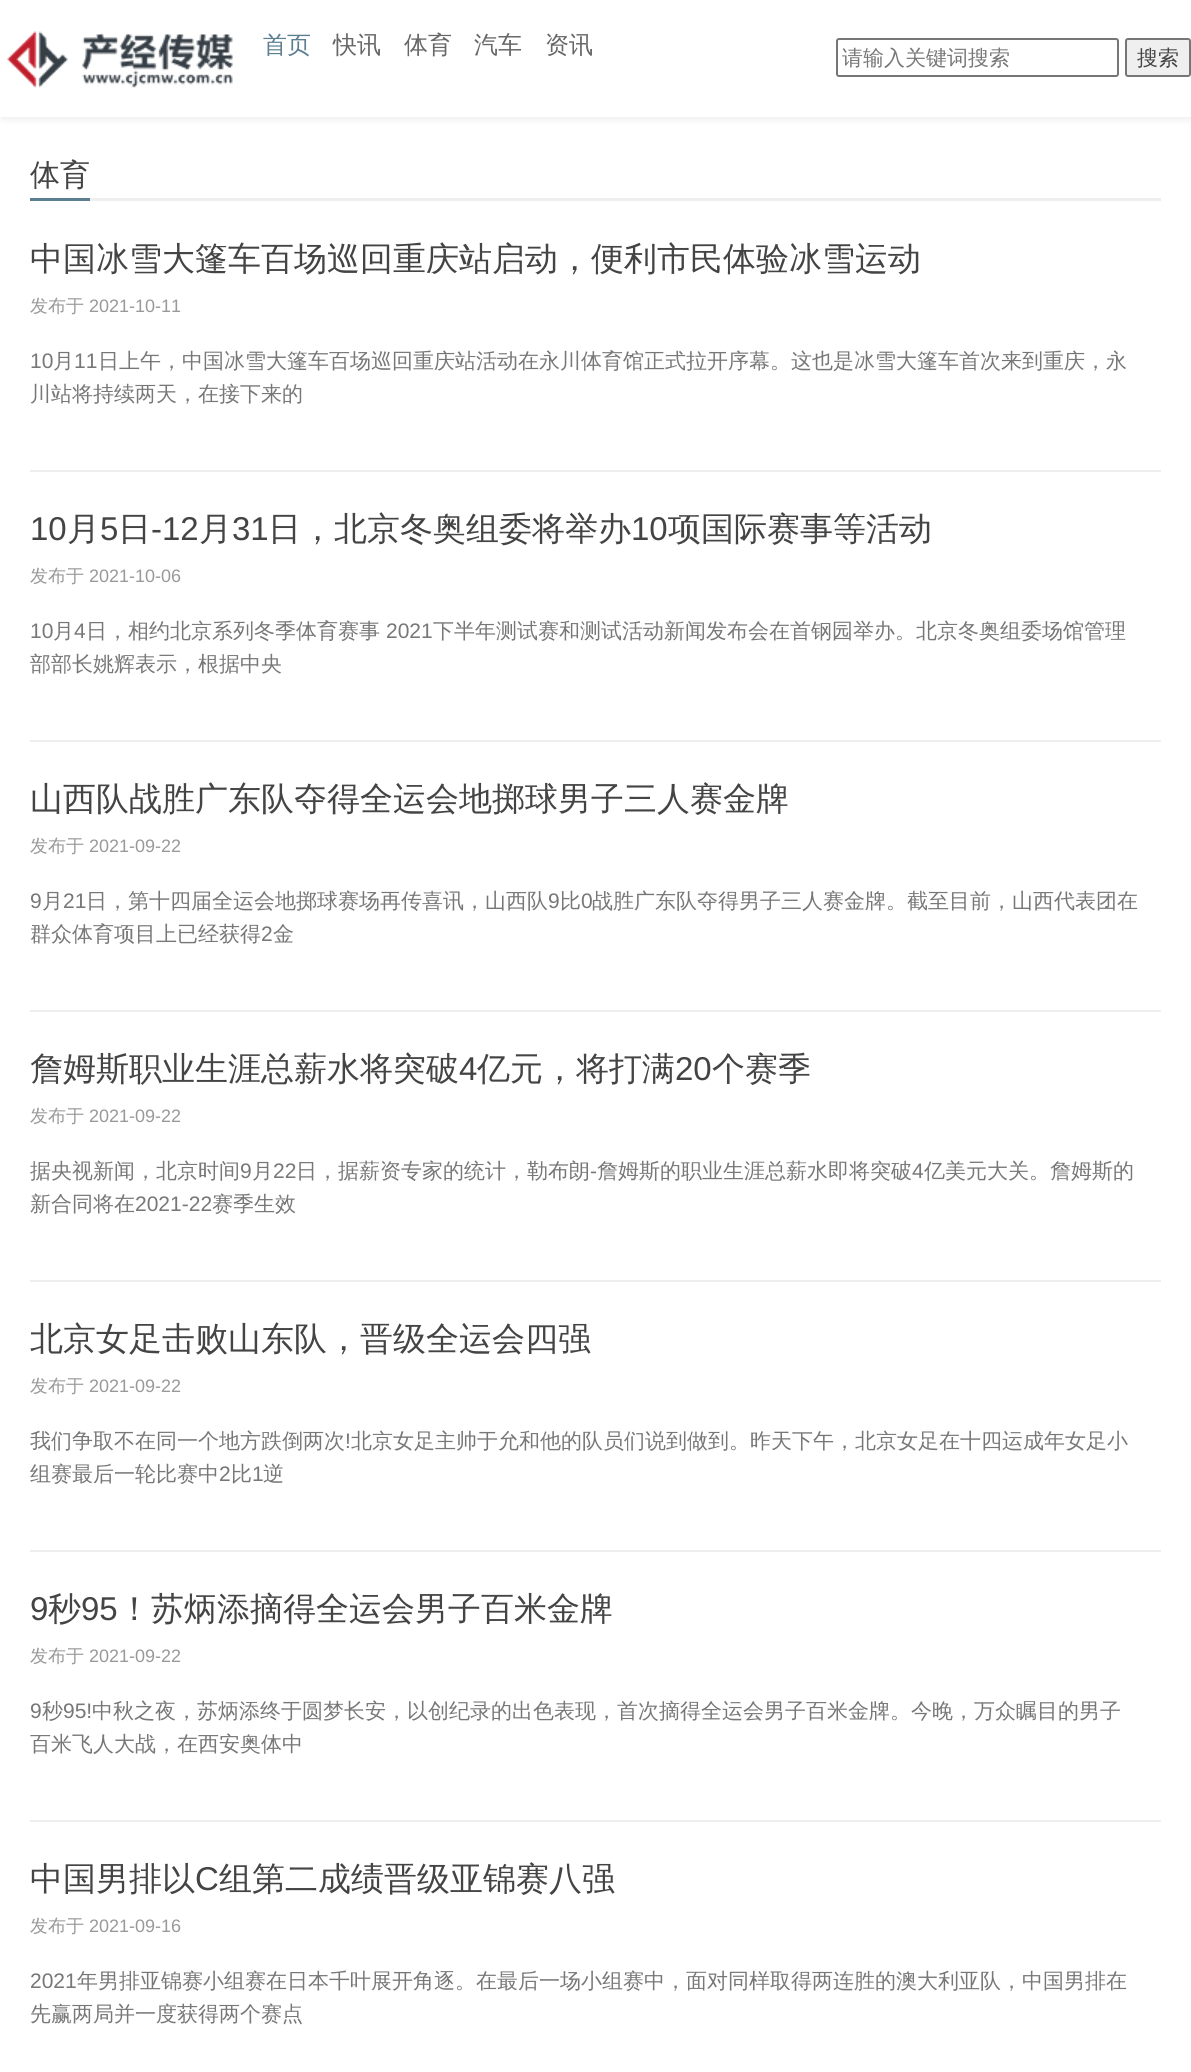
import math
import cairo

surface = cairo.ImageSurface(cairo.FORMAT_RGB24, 1191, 2072)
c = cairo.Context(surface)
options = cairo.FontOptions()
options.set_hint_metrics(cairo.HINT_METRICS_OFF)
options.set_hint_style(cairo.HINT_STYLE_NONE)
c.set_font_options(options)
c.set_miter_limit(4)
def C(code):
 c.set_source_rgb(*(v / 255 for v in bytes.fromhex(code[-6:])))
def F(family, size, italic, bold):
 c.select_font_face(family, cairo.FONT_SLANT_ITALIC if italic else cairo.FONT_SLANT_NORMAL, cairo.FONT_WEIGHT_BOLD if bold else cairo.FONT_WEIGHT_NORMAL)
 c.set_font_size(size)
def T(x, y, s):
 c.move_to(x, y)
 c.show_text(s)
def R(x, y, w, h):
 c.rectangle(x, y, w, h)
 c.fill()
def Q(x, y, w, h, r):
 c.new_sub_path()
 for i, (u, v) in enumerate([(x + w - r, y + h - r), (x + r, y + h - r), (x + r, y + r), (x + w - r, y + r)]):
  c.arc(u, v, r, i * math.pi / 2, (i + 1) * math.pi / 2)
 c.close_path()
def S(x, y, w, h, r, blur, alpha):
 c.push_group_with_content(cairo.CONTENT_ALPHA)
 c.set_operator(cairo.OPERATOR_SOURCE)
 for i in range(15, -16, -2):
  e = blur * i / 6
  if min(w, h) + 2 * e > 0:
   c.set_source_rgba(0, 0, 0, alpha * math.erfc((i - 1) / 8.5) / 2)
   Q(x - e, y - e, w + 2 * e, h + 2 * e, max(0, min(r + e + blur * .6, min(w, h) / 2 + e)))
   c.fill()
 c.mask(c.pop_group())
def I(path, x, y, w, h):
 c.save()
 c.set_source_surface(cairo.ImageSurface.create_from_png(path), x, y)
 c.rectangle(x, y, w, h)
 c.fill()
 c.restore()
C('ffffff')
c.paint()
C('000000')
S(2,2,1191,117,0,4,.08)
C('ffffff')
R(0,0,1191,117)
I('1.png',7,31,226,57)
F('WenQuanYi Zen Hei Medium',24,0,0)
C('5b7e91')
T(263,53,'首页')
C('666666')
T(333,53,'快讯')
T(404,53,'体育')
T(474,53,'汽车')
T(545,53,'资讯')
Q(837,39,281,37,2)
C('767676')
c.stroke()
F('WenQuanYi Zen Hei Medium',21,0,0)
C('777777')
T(842,65,'请输入关键词搜索')
C('efefef')
Q(1126,39,64,37,2)
c.fill_preserve()
C('767676')
c.stroke()
C('444444')
T(1137,65,'搜索')
C('eeeeee')
R(90,198,1071,3)
C('5b7e91')
R(30,198,60,3)
F('WenQuanYi Zen Hei Medium',30,0,0)
C('444444')
T(30,185,'体育')
C('eeeeee')
R(30,470,1131,2)
F('WenQuanYi Zen Hei Medium',33,0,0)
C('444444')
T(30,270,'中国冰雪大篷车百场巡回重庆站启动，便利市民体验冰雪运动')
F('WenQuanYi Zen Hei Medium',18,0,0)
C('999999')
T(30,312,'发布于')
F('Liberation Sans',18,0,0)
T(89,312,'2021-10-11')
F('Liberation Sans',21,0,0)
C('777777')
T(30,368,'10')
F('WenQuanYi Zen Hei Medium',21,0,0)
T(53,368,'月')
F('Liberation Sans',21,0,0)
T(74,368,'11')
F('WenQuanYi Zen Hei Medium',21,0,0)
T(98,368,'日上午，中国冰雪大篷车百场巡回重庆站活动在永川体育馆正式拉开序幕。这也是冰雪大篷车首次来到重庆，永')
T(30,401,'川站将持续两天，在接下来的')
C('eeeeee')
R(30,740,1131,2)
F('Liberation Sans',33,0,0)
C('444444')
T(30,540,'10')
F('WenQuanYi Zen Hei Medium',33,0,0)
T(67,540,'月')
F('Liberation Sans',33,0,0)
T(100,540,'5')
F('WenQuanYi Zen Hei Medium',33,0,0)
T(118,540,'日')
F('Liberation Sans',33,0,0)
T(151,540,'-12')
F('WenQuanYi Zen Hei Medium',33,0,0)
T(199,540,'月')
F('Liberation Sans',33,0,0)
T(232,540,'31')
F('WenQuanYi Zen Hei Medium',33,0,0)
T(268,540,'日，北京冬奥组委将举办')
F('Liberation Sans',33,0,0)
T(631,540,'10')
F('WenQuanYi Zen Hei Medium',33,0,0)
T(668,540,'项国际赛事等活动')
F('WenQuanYi Zen Hei Medium',18,0,0)
C('999999')
T(30,582,'发布于')
F('Liberation Sans',18,0,0)
T(89,582,'2021-10-06')
F('Liberation Sans',21,0,0)
C('777777')
T(30,638,'10')
F('WenQuanYi Zen Hei Medium',21,0,0)
T(53,638,'月')
F('Liberation Sans',21,0,0)
T(74,638,'4')
F('WenQuanYi Zen Hei Medium',21,0,0)
T(86,638,'日，相约北京系列冬季体育赛事')
F('Liberation Sans',21,0,0)
T(386,638,'2021')
F('WenQuanYi Zen Hei Medium',21,0,0)
T(433,638,'下半年测试赛和测试活动新闻发布会在首钢园举办。北京冬奥组委场馆管理')
T(30,671,'部部长姚辉表示，根据中央')
C('eeeeee')
R(30,1010,1131,2)
F('WenQuanYi Zen Hei Medium',33,0,0)
C('444444')
T(30,810,'山西队战胜广东队夺得全运会地掷球男子三人赛金牌')
F('WenQuanYi Zen Hei Medium',18,0,0)
C('999999')
T(30,852,'发布于')
F('Liberation Sans',18,0,0)
T(89,852,'2021-09-22')
F('Liberation Sans',21,0,0)
C('777777')
T(30,908,'9')
F('WenQuanYi Zen Hei Medium',21,0,0)
T(42,908,'月')
F('Liberation Sans',21,0,0)
T(63,908,'21')
F('WenQuanYi Zen Hei Medium',21,0,0)
T(86,908,'日，第十四届全运会地掷球赛场再传喜讯，山西队')
F('Liberation Sans',21,0,0)
T(548,908,'9')
F('WenQuanYi Zen Hei Medium',21,0,0)
T(560,908,'比')
F('Liberation Sans',21,0,0)
T(581,908,'0')
F('WenQuanYi Zen Hei Medium',21,0,0)
T(592,908,'战胜广东队夺得男子三人赛金牌。截至目前，山西代表团在')
T(30,941,'群众体育项目上已经获得')
F('Liberation Sans',21,0,0)
T(261,941,'2')
F('WenQuanYi Zen Hei Medium',21,0,0)
T(273,941,'金')
C('eeeeee')
R(30,1280,1131,2)
F('WenQuanYi Zen Hei Medium',33,0,0)
C('444444')
T(30,1080,'詹姆斯职业生涯总薪水将突破')
F('Liberation Sans',33,0,0)
T(459,1080,'4')
F('WenQuanYi Zen Hei Medium',33,0,0)
T(477,1080,'亿元，将打满')
F('Liberation Sans',33,0,0)
T(675,1080,'20')
F('WenQuanYi Zen Hei Medium',33,0,0)
T(712,1080,'个赛季')
F('WenQuanYi Zen Hei Medium',18,0,0)
C('999999')
T(30,1122,'发布于')
F('Liberation Sans',18,0,0)
T(89,1122,'2021-09-22')
F('WenQuanYi Zen Hei Medium',21,0,0)
C('777777')
T(30,1178,'据央视新闻，北京时间')
F('Liberation Sans',21,0,0)
T(240,1178,'9')
F('WenQuanYi Zen Hei Medium',21,0,0)
T(252,1178,'月')
F('Liberation Sans',21,0,0)
T(273,1178,'22')
F('WenQuanYi Zen Hei Medium',21,0,0)
T(296,1178,'日，据薪资专家的统计，勒布朗')
F('Liberation Sans',21,0,0)
T(590,1178,'-')
F('WenQuanYi Zen Hei Medium',21,0,0)
T(597,1178,'詹姆斯的职业生涯总薪水即将突破')
F('Liberation Sans',21,0,0)
T(912,1178,'4')
F('WenQuanYi Zen Hei Medium',21,0,0)
T(924,1178,'亿美元大关。詹姆斯的')
T(30,1211,'新合同将在')
F('Liberation Sans',21,0,0)
T(135,1211,'2021-22')
F('WenQuanYi Zen Hei Medium',21,0,0)
T(212,1211,'赛季生效')
C('eeeeee')
R(30,1550,1131,2)
F('WenQuanYi Zen Hei Medium',33,0,0)
C('444444')
T(30,1350,'北京女足击败山东队，晋级全运会四强')
F('WenQuanYi Zen Hei Medium',18,0,0)
C('999999')
T(30,1392,'发布于')
F('Liberation Sans',18,0,0)
T(89,1392,'2021-09-22')
F('WenQuanYi Zen Hei Medium',21,0,0)
C('777777')
T(30,1448,'我们争取不在同一个地方跌倒两次')
F('Liberation Sans',21,0,0)
T(345,1448,'!')
F('WenQuanYi Zen Hei Medium',21,0,0)
T(351,1448,'北京女足主帅于允和他的队员们说到做到。昨天下午，北京女足在十四运成年女足小')
T(30,1481,'组赛最后一轮比赛中')
F('Liberation Sans',21,0,0)
T(219,1481,'2')
F('WenQuanYi Zen Hei Medium',21,0,0)
T(231,1481,'比')
F('Liberation Sans',21,0,0)
T(252,1481,'1')
F('WenQuanYi Zen Hei Medium',21,0,0)
T(263,1481,'逆')
C('eeeeee')
R(30,1820,1131,2)
F('Liberation Sans',33,0,0)
C('444444')
T(30,1620,'9')
F('WenQuanYi Zen Hei Medium',33,0,0)
T(48,1620,'秒')
F('Liberation Sans',33,0,0)
T(81,1620,'95')
F('WenQuanYi Zen Hei Medium',33,0,0)
T(118,1620,'！苏炳添摘得全运会男子百米金牌')
F('WenQuanYi Zen Hei Medium',18,0,0)
C('999999')
T(30,1662,'发布于')
F('Liberation Sans',18,0,0)
T(89,1662,'2021-09-22')
F('Liberation Sans',21,0,0)
C('777777')
T(30,1718,'9')
F('WenQuanYi Zen Hei Medium',21,0,0)
T(42,1718,'秒')
F('Liberation Sans',21,0,0)
T(63,1718,'95!')
F('WenQuanYi Zen Hei Medium',21,0,0)
T(92,1718,'中秋之夜，苏炳添终于圆梦长安，以创纪录的出色表现，首次摘得全运会男子百米金牌。今晚，万众瞩目的男子')
T(30,1751,'百米飞人大战，在西安奥体中')
F('WenQuanYi Zen Hei Medium',33,0,0)
C('444444')
T(30,1890,'中国男排以')
F('Liberation Sans',33,0,0)
T(195,1890,'C')
F('WenQuanYi Zen Hei Medium',33,0,0)
T(219,1890,'组第二成绩晋级亚锦赛八强')
F('WenQuanYi Zen Hei Medium',18,0,0)
C('999999')
T(30,1932,'发布于')
F('Liberation Sans',18,0,0)
T(89,1932,'2021-09-16')
F('Liberation Sans',21,0,0)
C('777777')
T(30,1988,'2021')
F('WenQuanYi Zen Hei Medium',21,0,0)
T(77,1988,'年男排亚锦赛小组赛在日本千叶展开角逐。在最后一场小组赛中，面对同样取得两连胜的澳大利亚队，中国男排在')
T(30,2021,'先赢两局并一度获得两个赛点')
surface.write_to_png('o.png')
